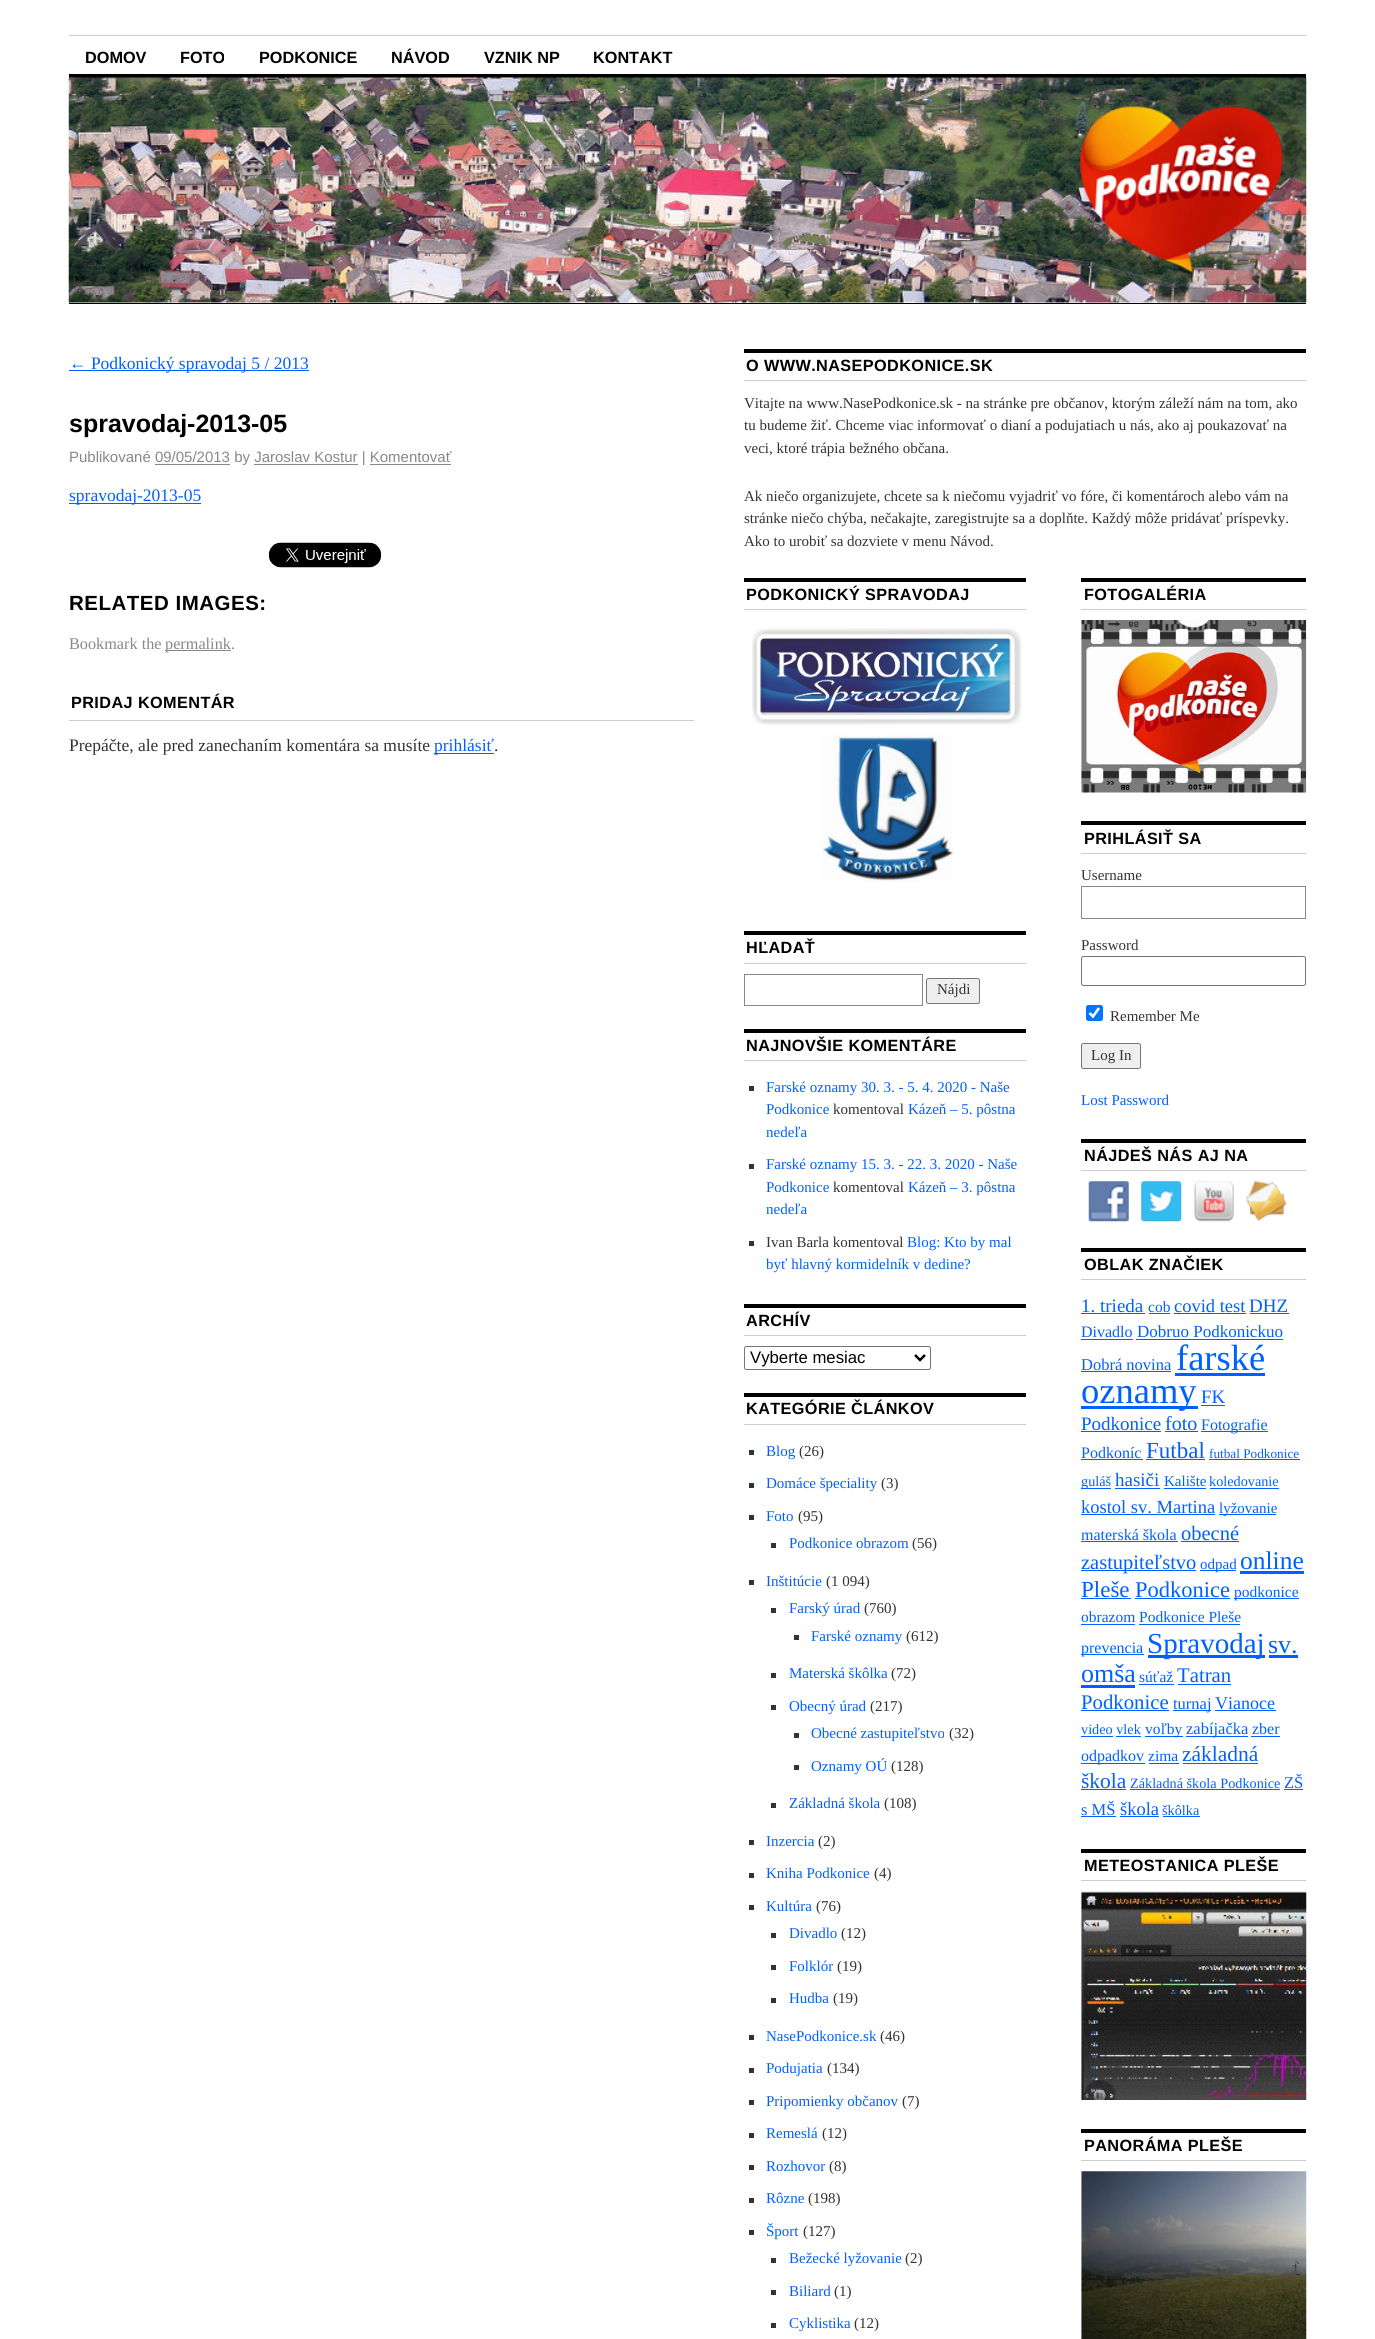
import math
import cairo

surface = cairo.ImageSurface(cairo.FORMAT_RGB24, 1375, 2339)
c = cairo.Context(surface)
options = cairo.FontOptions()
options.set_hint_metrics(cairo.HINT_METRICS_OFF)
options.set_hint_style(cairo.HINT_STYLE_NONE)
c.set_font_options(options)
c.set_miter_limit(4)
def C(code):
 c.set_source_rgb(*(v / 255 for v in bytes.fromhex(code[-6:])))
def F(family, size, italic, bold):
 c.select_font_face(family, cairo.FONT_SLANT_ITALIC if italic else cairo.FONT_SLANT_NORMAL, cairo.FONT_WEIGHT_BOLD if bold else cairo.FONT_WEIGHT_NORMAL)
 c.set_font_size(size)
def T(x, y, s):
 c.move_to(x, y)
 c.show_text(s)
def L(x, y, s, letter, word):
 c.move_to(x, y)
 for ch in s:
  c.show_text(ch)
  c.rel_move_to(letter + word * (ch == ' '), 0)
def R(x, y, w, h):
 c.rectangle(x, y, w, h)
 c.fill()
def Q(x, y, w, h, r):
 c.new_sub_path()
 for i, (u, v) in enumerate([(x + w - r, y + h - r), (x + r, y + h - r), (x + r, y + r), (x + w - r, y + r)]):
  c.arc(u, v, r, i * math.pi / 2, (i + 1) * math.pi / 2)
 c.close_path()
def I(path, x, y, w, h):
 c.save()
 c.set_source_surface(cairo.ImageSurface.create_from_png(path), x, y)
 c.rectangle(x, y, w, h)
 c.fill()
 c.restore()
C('ffffff')
c.paint()
C('cccccc')
R(69,35,1237,1)
F('Liberation Sans',16.25,0,1)
C('000000')
T(85,63,'DOMOV')
T(180,63,'FOTO')
T(259,63,'PODKONICE')
T(391,63,'NÁVOD')
T(484,63,'VZNIK NP')
T(593,63,'KONTAKT')
R(69,74,1237,4)
I('1.png',68,77,1239,226)
R(69,303,1237,1)
C('0060ff')
R(69,370,240,1)
F('Liberation Serif',17.5,0,0)
T(69,369,'← Podkonický spravodaj 5 / 2013')
F('Liberation Sans',25,0,1)
C('000000')
T(69,432,'spravodaj-2013-05')
F('Liberation Sans',15,0,0)
C('888888')
T(69,462,'Publikované 09/05/2013 by Jaroslav Kostur | Komentovať')
R(155,464,75,1)
R(254,464,104,1)
R(370,464,81,1)
C('0060ff')
R(69,503,132,1)
F('Liberation Serif',17.5,0,0)
T(69,501,'spravodaj-2013-05')
I('2.png',268,542,114,26)
F('Liberation Sans',20.5,0,1)
C('000000')
L(69,610,'RELATED IMAGES:',.5,0)
F('Liberation Serif',16.25,0,0)
C('888888')
T(69,649,'Bookmark the')
R(165,650,66,1)
T(165,649,'permalink.')
C('cccccc')
R(69,720,625,1)
F('Liberation Sans',16.25,0,1)
C('000000')
L(71,708,'PRIDAJ KOMENTÁR',.4,0)
F('Liberation Serif',17.5,0,0)
C('333333')
T(69,751,'Prepáčte, ale pred zanechaním komentára sa musíte')
C('0060ff')
R(434,753,60,1)
T(434,751,'prihlásiť')
C('333333')
T(494,751,'.')
C('000000')
R(744,349,562,4)
C('cccccc')
R(744,380,562,1)
F('Liberation Sans',16.25,0,1)
C('000000')
L(746,371,'O WWW.NASEPODKONICE.SK',.4,0)
F('Liberation Serif',15,0,0)
C('333333')
T(744,408,'Vitajte na www.NasePodkonice.sk - na stránke pre občanov, ktorým záleží nám na tom, ako')
T(744,430,'tu budeme žiť. Chceme viac informovať o dianí a podujatiach u nás, ako aj poukazovať na')
T(744,453,'veci, ktoré trápia bežného občana.')
T(744,501,'Ak niečo organizujete, chcete sa k niečomu vyjadriť vo fóre, či komentároch alebo vám na')
T(744,523,'stránke niečo chýba, nečakajte, zaregistrujte sa a doplňte. Každý môže pridávať príspevky.')
T(744,546,'Ako to urobiť sa dozviete v menu Návod.')
C('000000')
R(744,578,282,4)
C('cccccc')
R(744,609,282,1)
F('Liberation Sans',16.25,0,1)
C('000000')
L(746,600,'PODKONICKÝ SPRAVODAJ',.4,0)
I('3.png',752,628,270,254)
R(744,931,282,4)
C('cccccc')
R(744,963,282,1)
C('000000')
L(746,953,'HĽADAŤ',.4,0)
c.rectangle(744.5,974.5,178,31)
C('888888')
c.set_line_width(1)
c.stroke()
C('efefef')
Q(926.5,978.5,53,25,2)
c.fill_preserve()
C('767676')
c.stroke()
F('Liberation Serif',15,0,0)
C('333333')
T(937,994,'Nájdi')
C('000000')
R(744,1029,282,4)
C('cccccc')
R(744,1060,282,1)
F('Liberation Sans',16.25,0,1)
C('000000')
L(746,1051,'NAJNOVŠIE KOMENTÁRE',.4,0)
C('333333')
R(749,1086,5,5)
F('Liberation Serif',15,0,0)
C('0060ff')
T(766,1092,'Farské oznamy 30. 3. - 5. 4. 2020 - Naše')
T(766,1114,'Podkonice')
C('333333')
T(833,1114,'komentoval')
C('0060ff')
T(908,1114,'Kázeň – 5. pôstna')
T(766,1137,'nedeľa')
C('333333')
R(749,1164,5,5)
C('0060ff')
T(766,1169,'Farské oznamy 15. 3. - 22. 3. 2020 - Naše')
T(766,1192,'Podkonice')
C('333333')
T(833,1192,'komentoval')
C('0060ff')
T(908,1192,'Kázeň – 3. pôstna')
T(766,1214,'nedeľa')
C('333333')
R(749,1241,5,5)
T(766,1247,'Ivan Barla komentoval')
C('0060ff')
T(907,1247,'Blog: Kto by mal')
T(766,1269,'byť hlavný kormidelník v dedine?')
C('000000')
R(744,1304,282,4)
C('cccccc')
R(744,1335,282,1)
F('Liberation Sans',16.25,0,1)
C('000000')
L(746,1326,'ARCHÍV',.4,0)
Q(744.5,1346.5,186,23,2)
C('767676')
c.stroke()
c.new_path()
c.move_to(915,1355)
c.line_to(920,1360)
c.line_to(925,1355)
C('000000')
c.set_line_width(2.5)
c.stroke()
F('Liberation Sans',16.75,0,0)
T(750,1363,'Vyberte mesiac')
R(744,1393,282,4)
C('cccccc')
R(744,1424,282,1)
F('Liberation Sans',16.25,0,1)
C('000000')
L(746,1414,'KATEGÓRIE ČLÁNKOV',.4,0)
C('333333')
R(749,1450,5,5)
F('Liberation Serif',15,0,0)
C('0060ff')
T(766,1456,'Blog')
C('333333')
T(799,1456,'(26)')
R(749,1483,5,5)
C('0060ff')
T(766,1488,'Domáce špeciality')
C('333333')
T(881,1488,'(3)')
R(749,1515,5,5)
C('0060ff')
T(766,1521,'Foto')
C('333333')
T(798,1521,'(95)')
R(771,1543,5,5)
C('0060ff')
T(789,1548,'Podkonice obrazom')
C('333333')
T(912,1548,'(56)')
R(749,1580,5,5)
C('0060ff')
T(766,1586,'Inštitúcie')
C('333333')
T(826,1586,'(1 094)')
R(771,1608,5,5)
C('0060ff')
T(789,1613,'Farský úrad')
C('333333')
T(864,1613,'(760)')
R(794,1635,5,5)
C('0060ff')
T(811,1641,'Farské oznamy')
C('333333')
T(906,1641,'(612)')
R(771,1673,5,5)
C('0060ff')
T(789,1678,'Materská škôlka')
C('333333')
T(891,1678,'(72)')
R(771,1705,5,5)
C('0060ff')
T(789,1711,'Obecný úrad')
C('333333')
T(870,1711,'(217)')
R(794,1733,5,5)
C('0060ff')
T(811,1738,'Obecné zastupiteľstvo')
C('333333')
T(949,1738,'(32)')
R(794,1765,5,5)
C('0060ff')
T(811,1771,'Oznamy OÚ')
C('333333')
T(891,1771,'(128)')
R(771,1803,5,5)
C('0060ff')
T(789,1808,'Základná škola')
C('333333')
T(884,1808,'(108)')
R(749,1840,5,5)
C('0060ff')
T(766,1846,'Inzercia')
C('333333')
T(818,1846,'(2)')
R(749,1873,5,5)
C('0060ff')
T(766,1878,'Kniha Podkonice')
C('333333')
T(874,1878,'(4)')
R(749,1905,5,5)
C('0060ff')
T(766,1911,'Kultúra')
C('333333')
T(816,1911,'(76)')
R(771,1933,5,5)
C('0060ff')
T(789,1938,'Divadlo')
C('333333')
T(841,1938,'(12)')
R(771,1965,5,5)
C('0060ff')
T(789,1971,'Folklór')
C('333333')
T(837,1971,'(19)')
R(771,1998,5,5)
C('0060ff')
T(789,2003,'Hudba')
C('333333')
T(833,2003,'(19)')
R(749,2035,5,5)
C('0060ff')
T(766,2041,'NasePodkonice.sk')
C('333333')
T(880,2041,'(46)')
R(749,2068,5,5)
C('0060ff')
T(766,2073,'Podujatia')
C('333333')
T(827,2073,'(134)')
R(749,2100,5,5)
C('0060ff')
T(766,2106,'Pripomienky občanov')
C('333333')
T(902,2106,'(7)')
R(749,2133,5,5)
C('0060ff')
T(766,2138,'Remeslá')
C('333333')
T(822,2138,'(12)')
R(749,2165,5,5)
C('0060ff')
T(766,2171,'Rozhovor')
C('333333')
T(829,2171,'(8)')
R(749,2198,5,5)
C('0060ff')
T(766,2203,'Rôzne')
C('333333')
T(808,2203,'(198)')
R(749,2230,5,5)
C('0060ff')
T(766,2236,'Šport')
C('333333')
T(803,2236,'(127)')
R(771,2258,5,5)
C('0060ff')
T(789,2263,'Bežecké lyžovanie')
C('333333')
T(905,2263,'(2)')
R(771,2290,5,5)
C('0060ff')
T(789,2296,'Biliard')
C('333333')
T(834,2296,'(1)')
R(771,2323,5,5)
C('0060ff')
T(789,2328,'Cyklistika')
C('333333')
T(854,2328,'(12)')
C('000000')
R(1081,578,225,4)
C('cccccc')
R(1081,609,225,1)
F('Liberation Sans',16.25,0,1)
C('000000')
L(1084,600,'FOTOGALÉRIA',.4,0)
I('4.png',1081,620,226,173)
R(1081,821,225,4)
C('cccccc')
R(1081,853,225,1)
C('000000')
L(1084,844,'PRIHLÁSIŤ SA',.4,0)
F('Liberation Serif',15,0,0)
C('333333')
T(1081,880,'Username')
c.rectangle(1081.5,886.5,224,32)
C('888888')
c.set_line_width(1)
c.stroke()
C('333333')
T(1081,950,'Password')
Q(1081.5,956.5,224,29,2)
C('767676')
c.stroke()
C('0075ff')
Q(1086,1005,17,16,2.5)
c.fill()
c.new_path()
c.move_to(1089.5,1013)
c.line_to(1093,1016.5)
c.line_to(1099,1008)
C('ffffff')
c.set_line_width(2.6)
c.stroke()
C('333333')
T(1110,1021,'Remember Me')
C('efefef')
Q(1081.5,1043.5,59,25,2)
c.fill_preserve()
C('767676')
c.set_line_width(1)
c.stroke()
C('333333')
T(1091,1060,'Log In')
C('0060ff')
T(1081,1105,'Lost Password')
C('000000')
R(1081,1139,225,4)
C('cccccc')
R(1081,1170,225,1)
F('Liberation Sans',16.25,0,1)
C('000000')
L(1084,1161,'NÁJDEŠ NÁS AJ NA',.4,0)
I('5.png',1088,1181,41,41)
I('6.png',1141,1181,41,41)
I('7.png',1193,1181,41,41)
I('8.png',1246,1181,41,41)
R(1081,1248,225,4)
C('cccccc')
R(1081,1279,225,1)
C('000000')
L(1084,1270,'OBLAK ZNAČIEK',.4,0)
F('Liberation Serif',19,0,0)
C('0060ff')
T(1081,1312,'1. trieda')
R(1081,1313,64,1)
F('Liberation Serif',15.5,0,0)
T(1148,1312,'cob')
R(1149,1313,21,1)
F('Liberation Serif',18.5,0,0)
T(1174,1312,'covid test')
R(1174,1313,72,1)
F('Liberation Serif',19,0,0)
T(1249,1312,'DHZ')
R(1250,1313,39,1)
F('Liberation Serif',16,0,0)
T(1081,1337,'Divadlo')
R(1081,1339,52,1)
F('Liberation Serif',17,0,0)
T(1137,1337,'Dobruo Podkonickuo')
R(1136,1339,147,1)
F('Liberation Serif',16.5,0,0)
T(1081,1370,'Dobrá novina')
R(1081,1371,90,1)
F('Liberation Serif',36.5,0,0)
T(1176,1370,'farské')
R(1175,1373,90,3)
R(1081,1406,117,3)
T(1081,1403,'oznamy')
F('Liberation Serif',19,0,0)
T(1201,1403,'FK')
R(1201,1405,24,1)
T(1081,1430,'Podkonice')
R(1081,1431,80,1)
F('Liberation Serif',20,0,0)
T(1165,1430,'foto')
R(1165,1431,33,1)
R(1201,1431,67,1)
F('Liberation Serif',16,0,0)
T(1201,1430,'Fotografie')
T(1081,1458,'Podkoníc')
R(1081,1459,62,1)
F('Liberation Serif',23,0,0)
T(1146,1458,'Futbal')
R(1146,1459,59,1)
F('Liberation Serif',13.25,0,0)
T(1209,1458,'futbal Podkonice')
R(1209,1459,91,1)
R(1081,1488,30,1)
F('Liberation Serif',14.25,0,0)
T(1081,1486,'guláš')
F('Liberation Serif',19,0,0)
T(1115,1486,'hasiči')
R(1115,1488,45,1)
F('Liberation Serif',15,0,0)
T(1164,1486,'Kalište')
R(1164,1488,42,1)
F('Liberation Serif',14.25,0,0)
T(1209,1486,'koledovanie')
R(1210,1488,69,1)
F('Liberation Serif',18.5,0,0)
T(1081,1513,'kostol sv. Martina')
R(1081,1514,134,1)
R(1219,1514,57,1)
F('Liberation Serif',15,0,0)
T(1219,1513,'lyžovanie')
F('Liberation Serif',16,0,0)
T(1081,1540,'materská škola')
R(1081,1541,97,1)
F('Liberation Serif',20.5,0,0)
T(1181,1540,'obecné')
R(1181,1541,58,1)
R(1081,1570,115,1)
T(1081,1569,'zastupiteľstvo')
R(1200,1570,36,1)
F('Liberation Serif',15,0,0)
T(1200,1569,'odpad')
F('Liberation Serif',25.5,0,0)
T(1240,1569,'online')
R(1240,1571,64,3)
F('Liberation Serif',23,0,0)
T(1081,1597,'Pleše')
R(1081,1598,50,1)
F('Liberation Serif',22.5,0,0)
T(1135,1597,'Podkonice')
R(1135,1598,95,1)
R(1234,1598,65,1)
F('Liberation Serif',15.5,0,0)
T(1234,1597,'podkonice')
T(1081,1622,'obrazom Podkonice Pleše')
R(1081,1624,54,1)
R(1139,1624,101,1)
R(1081,1654,63,1)
F('Liberation Serif',16,0,0)
T(1081,1653,'prevencia')
R(1148,1655,117,3)
F('Liberation Serif',29,0,0)
T(1147,1653,'Spravodaj')
F('Liberation Serif',26,0,0)
T(1268,1653,'sv.')
R(1269,1655,29,3)
T(1081,1682,'omša')
R(1081,1685,54,3)
F('Liberation Serif',15.5,0,0)
T(1139,1682,'súťaž')
R(1139,1684,35,1)
F('Liberation Serif',20.75,0,0)
T(1177,1682,'Tatran')
R(1178,1684,53,1)
T(1081,1709,'Podkonice')
R(1081,1710,88,1)
R(1173,1710,38,1)
F('Liberation Serif',16.5,0,0)
T(1173,1709,'turnaj')
F('Liberation Serif',18,0,0)
T(1215,1709,'Vianoce')
R(1215,1710,61,1)
F('Liberation Serif',14.25,0,0)
T(1081,1734,'video vlek')
R(1081,1736,32,1)
R(1145,1736,38,1)
F('Liberation Serif',15.5,0,0)
T(1145,1734,'voľby')
R(1186,1736,62,1)
F('Liberation Serif',16.5,0,0)
T(1186,1734,'zabíjačka')
F('Liberation Serif',16,0,0)
T(1252,1734,'zber')
R(1251,1736,29,1)
R(1116,1736,25,1)
R(1081,1763,64,1)
T(1081,1761,'odpadkov')
F('Liberation Serif',15.5,0,0)
T(1148,1761,'zima')
R(1149,1763,30,1)
F('Liberation Serif',21.5,0,0)
T(1182,1761,'základná')
R(1183,1763,75,1)
T(1081,1788,'škola')
R(1081,1789,45,1)
F('Liberation Serif',14.25,0,0)
T(1130,1788,'Základná škola Podkonice')
R(1130,1789,150,1)
F('Liberation Serif',16.5,0,0)
T(1284,1788,'ZŠ')
R(1284,1789,19,1)
T(1081,1815,'s MŠ')
R(1081,1816,35,1)
F('Liberation Serif',18.5,0,0)
T(1120,1815,'škola')
R(1120,1816,39,1)
F('Liberation Serif',14.25,0,0)
T(1162,1815,'škôlka')
R(1163,1816,37,1)
C('000000')
R(1081,1849,225,4)
C('cccccc')
R(1081,1880,225,1)
F('Liberation Sans',16.25,0,1)
C('000000')
L(1084,1871,'METEOSTANICA PLEŠE',.4,0)
I('9.png',1081,1891,226,209)
R(1081,2129,225,4)
C('cccccc')
R(1081,2160,225,1)
C('000000')
L(1084,2151,'PANORÁMA PLEŠE',.4,0)
I('10.png',1081,2171,226,168)
surface.write_to_png('o.png')
